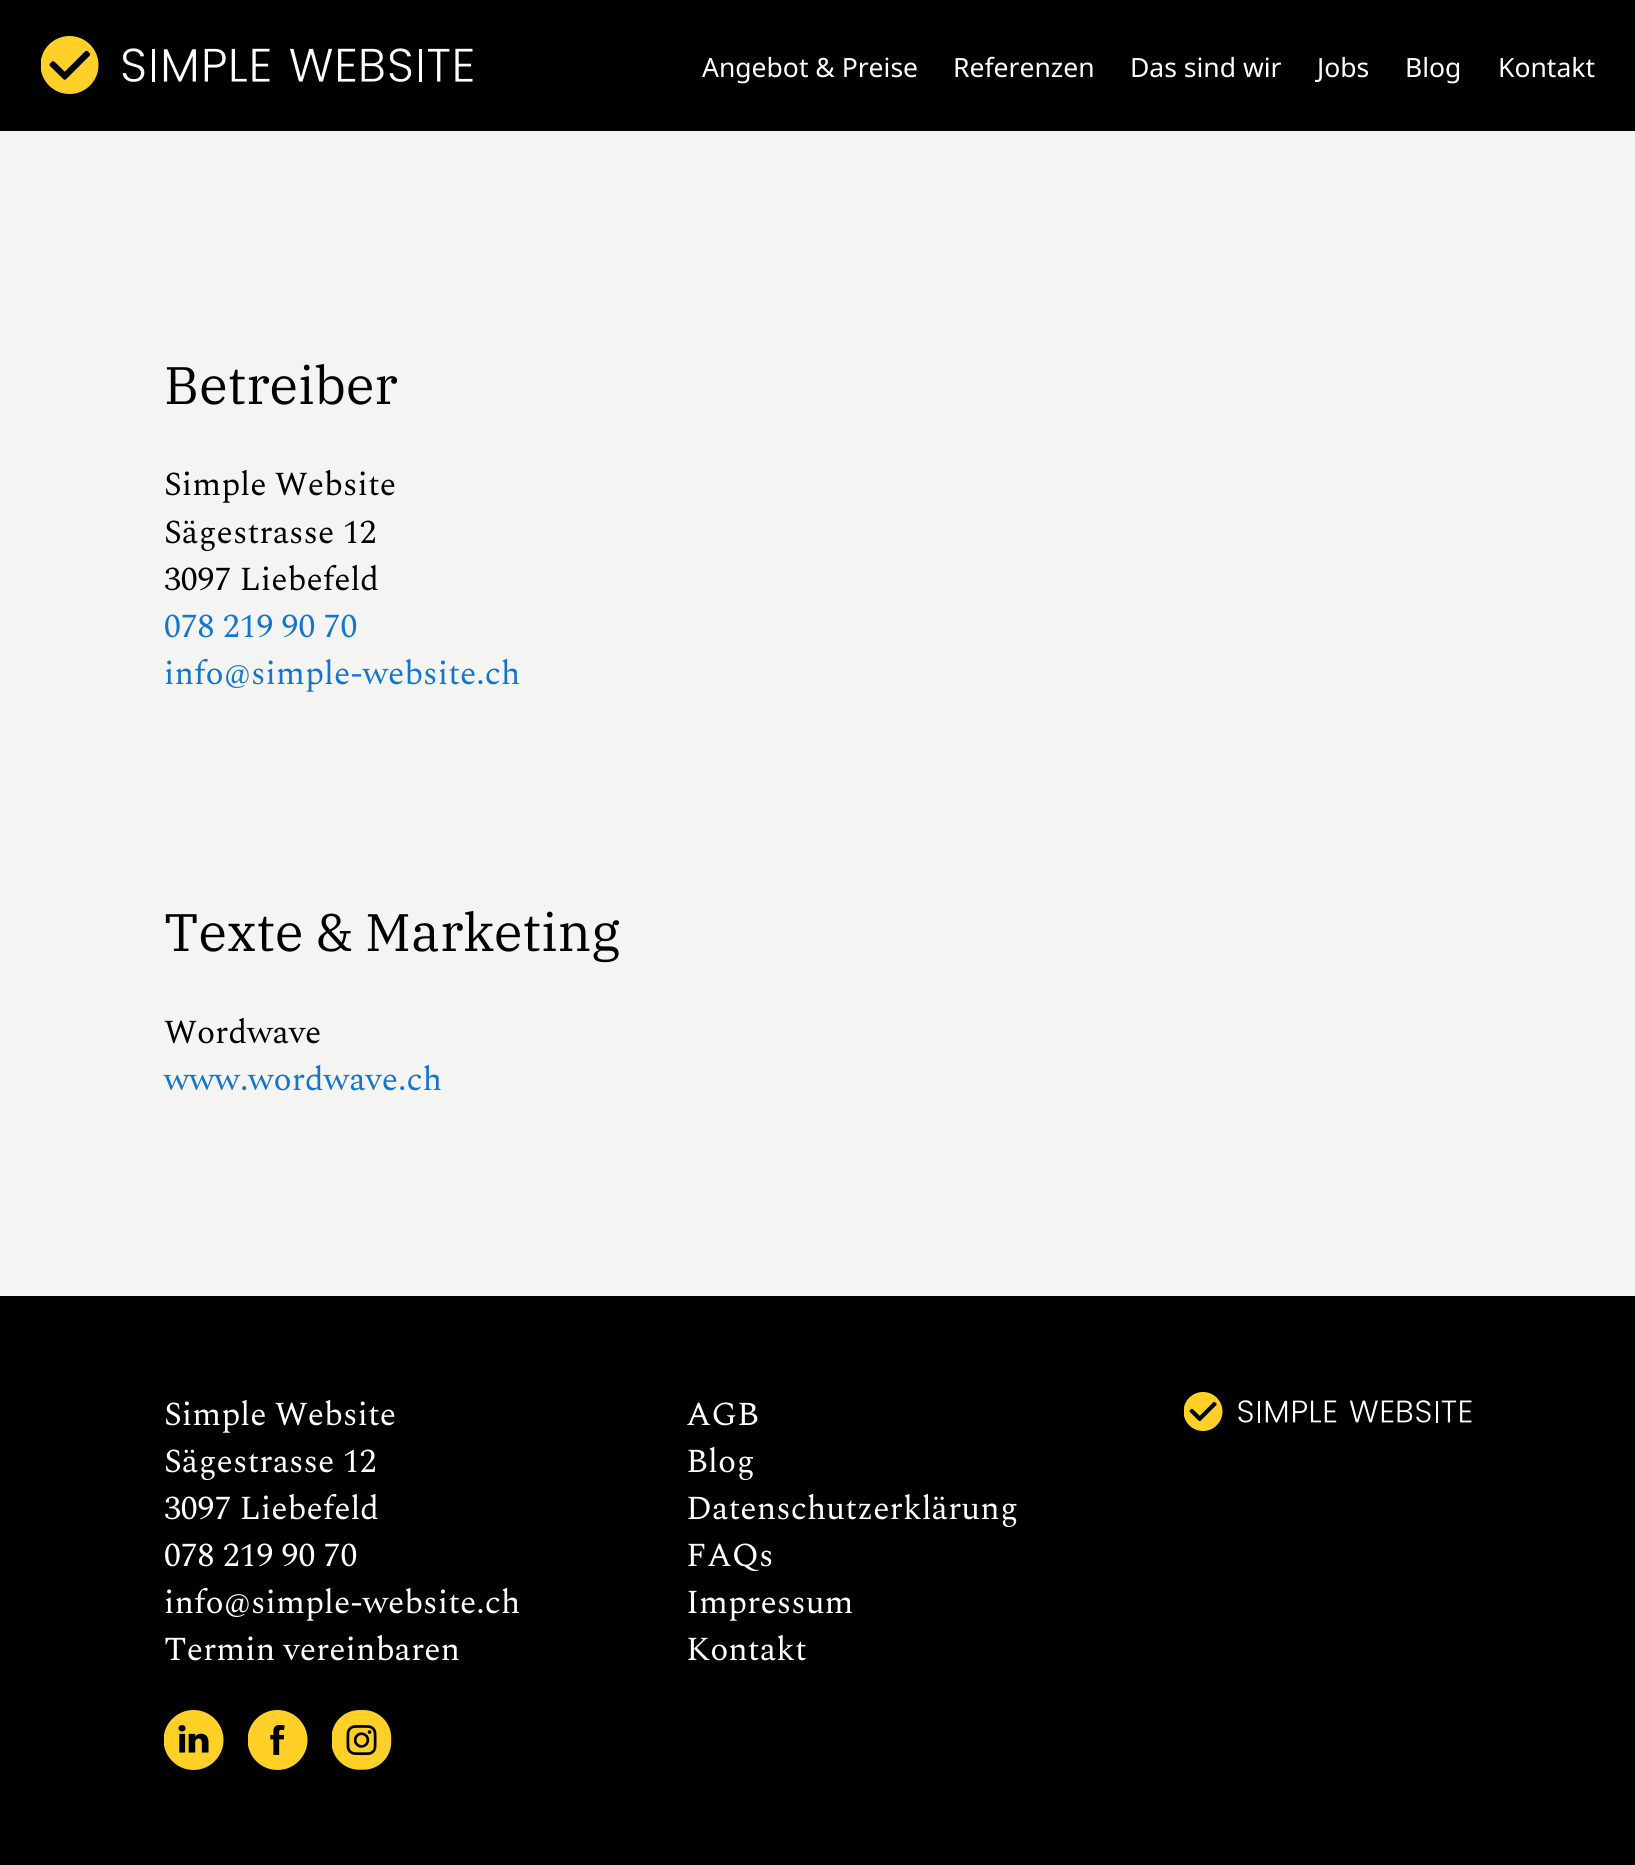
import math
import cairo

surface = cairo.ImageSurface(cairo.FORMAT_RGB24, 1635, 1865)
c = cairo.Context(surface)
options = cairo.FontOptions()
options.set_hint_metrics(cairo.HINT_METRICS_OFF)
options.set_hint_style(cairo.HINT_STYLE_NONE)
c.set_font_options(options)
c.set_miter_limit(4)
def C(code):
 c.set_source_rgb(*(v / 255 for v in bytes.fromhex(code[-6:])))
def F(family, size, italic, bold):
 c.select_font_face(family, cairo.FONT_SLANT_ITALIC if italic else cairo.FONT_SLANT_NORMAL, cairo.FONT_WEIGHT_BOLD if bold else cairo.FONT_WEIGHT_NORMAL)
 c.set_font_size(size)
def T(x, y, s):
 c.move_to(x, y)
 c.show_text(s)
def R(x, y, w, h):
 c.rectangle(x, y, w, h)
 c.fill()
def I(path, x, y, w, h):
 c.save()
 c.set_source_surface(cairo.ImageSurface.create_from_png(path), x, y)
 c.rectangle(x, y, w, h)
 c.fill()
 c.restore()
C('f4f4f2')
c.paint()
C('000000')
R(0,0,1635,131)
I('1.png',41,36,432,58)
F('Noto Sans',26.5,0,0)
C('ffffff')
T(702,77,'Angebot & Preise')
T(953,77,'Referenzen')
T(1130,77,'Das sind wir')
T(1317,77,'Jobs')
T(1405,77,'Blog')
T(1498,77,'Kontakt')
F('IBM Plex Serif',52.75,0,0)
C('000000')
T(164,404,'Betreiber')
F('Spectral',33.6,0,0)
T(164,495,'Simple Website')
T(164,543,'Sägestrasse 12')
T(164,590,'3097 Liebefeld')
C('1575ce')
T(164,637,'078 219 90 70')
T(164,684,'info@simple-website.ch')
F('IBM Plex Serif',52.75,0,0)
C('000000')
T(164,951,'Texte & Marketing')
F('Spectral',33.6,0,0)
T(164,1043,'Wordwave')
C('1575ce')
T(164,1090,'www.wordwave.ch')
C('000000')
R(0,1296,1635,569)
C('ffffff')
T(164,1425,'Simple Website')
T(164,1472,'Sägestrasse 12')
T(164,1519,'3097 Liebefeld')
T(164,1566,'078 219 90 70')
T(164,1613,'info@simple-website.ch')
T(164,1660,'Termin vereinbaren')
I('2.png',164,1710,60,60)
I('3.png',248,1710,60,60)
I('4.png',332,1710,60,60)
T(686,1425,'AGB')
T(686,1472,'Blog')
T(686,1519,'Datenschutzerklärung')
T(686,1566,'FAQs')
T(686,1613,'Impressum')
T(686,1660,'Kontakt')
I('5.png',1184,1392,288,39)
surface.write_to_png('o.png')
